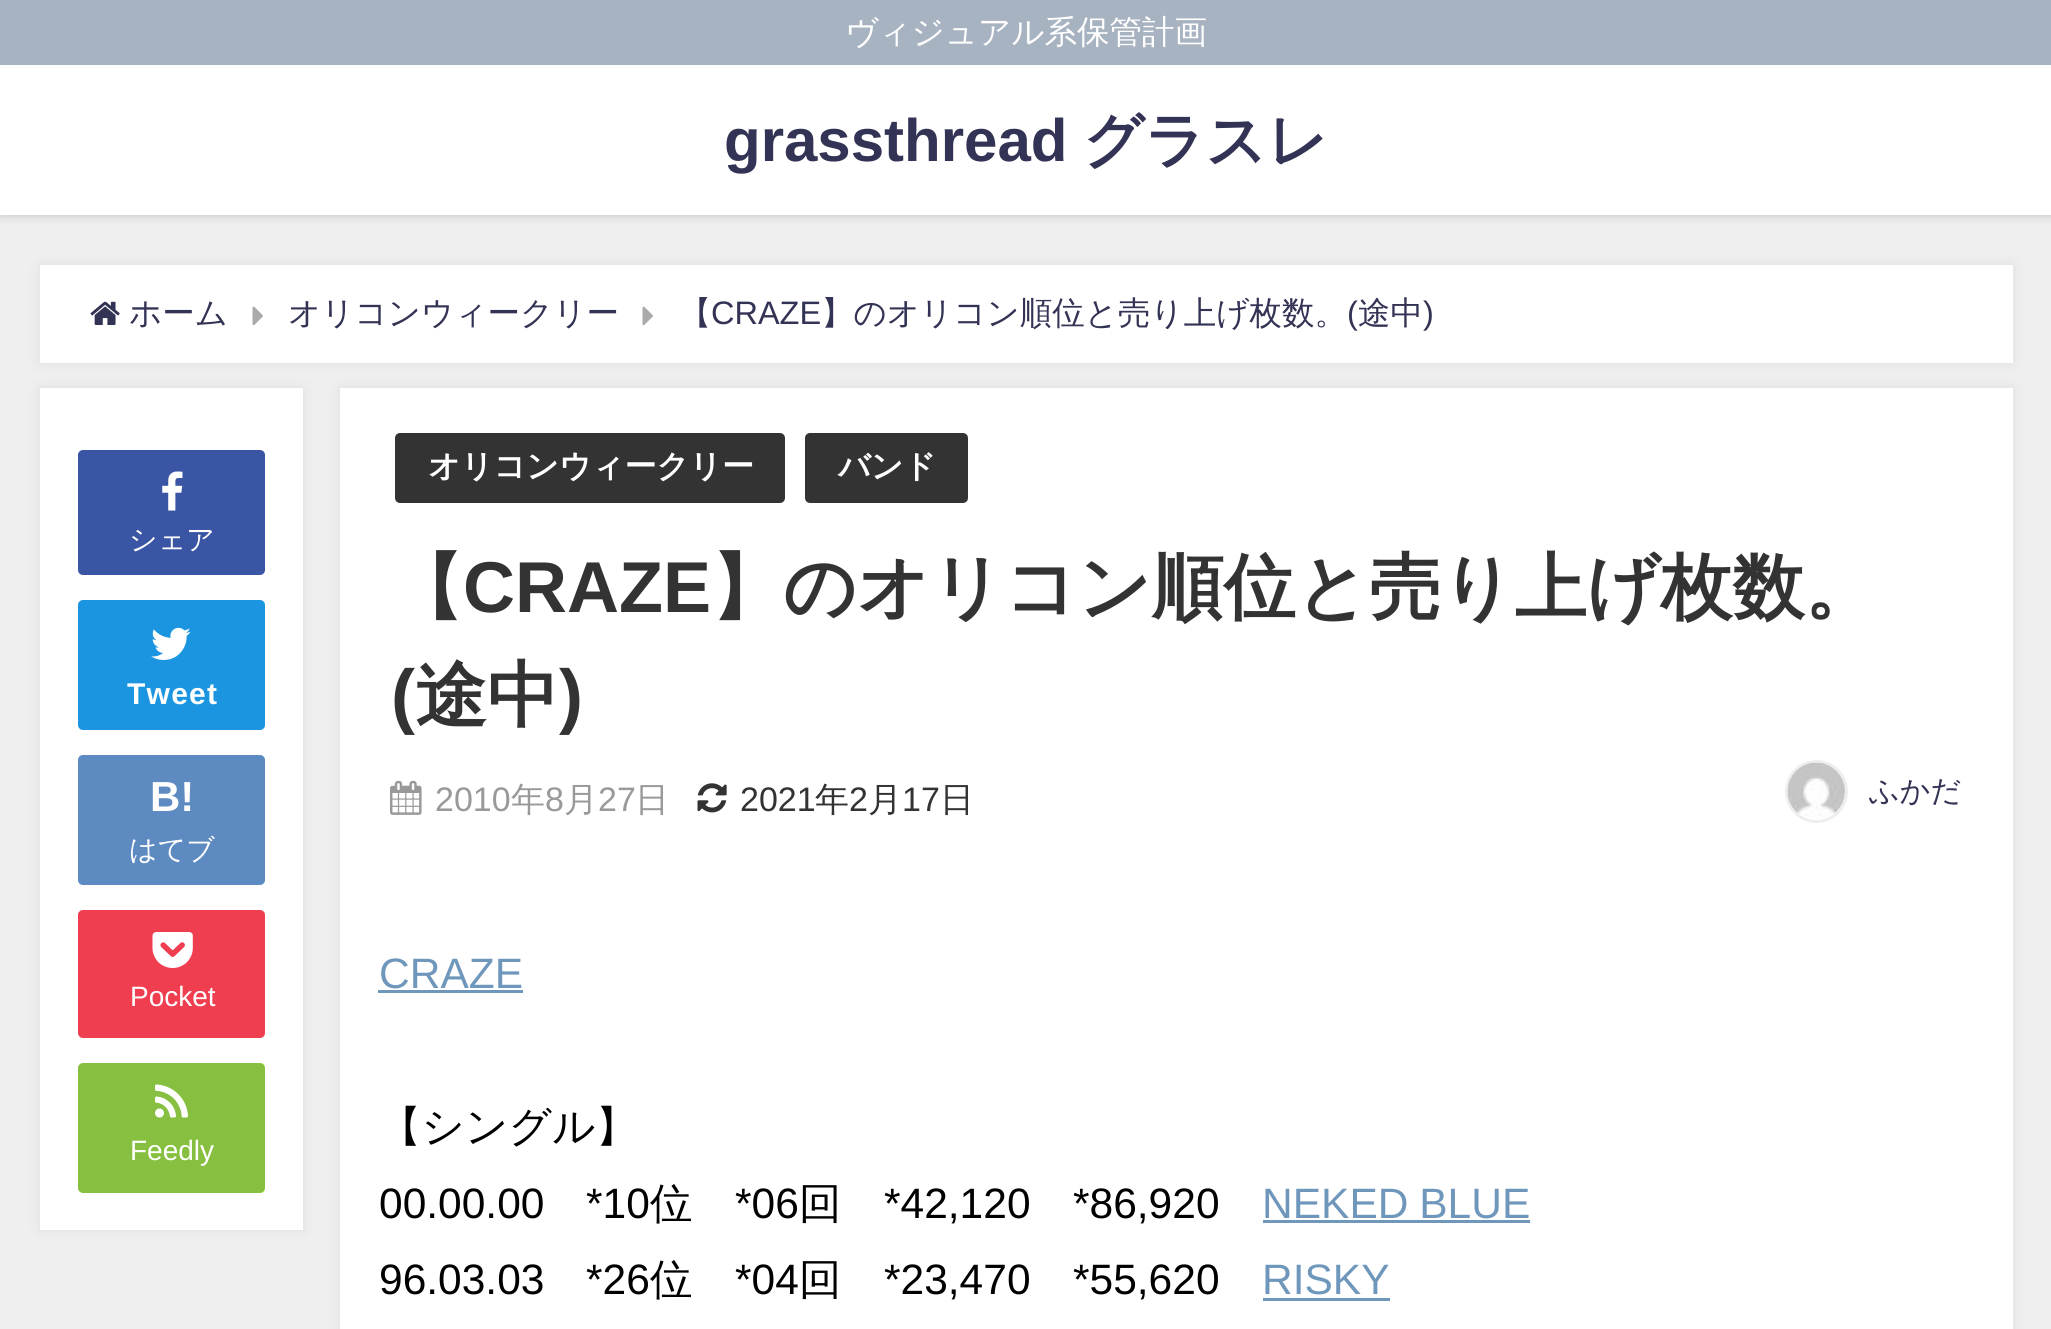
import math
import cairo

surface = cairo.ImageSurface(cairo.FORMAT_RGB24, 2051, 1329)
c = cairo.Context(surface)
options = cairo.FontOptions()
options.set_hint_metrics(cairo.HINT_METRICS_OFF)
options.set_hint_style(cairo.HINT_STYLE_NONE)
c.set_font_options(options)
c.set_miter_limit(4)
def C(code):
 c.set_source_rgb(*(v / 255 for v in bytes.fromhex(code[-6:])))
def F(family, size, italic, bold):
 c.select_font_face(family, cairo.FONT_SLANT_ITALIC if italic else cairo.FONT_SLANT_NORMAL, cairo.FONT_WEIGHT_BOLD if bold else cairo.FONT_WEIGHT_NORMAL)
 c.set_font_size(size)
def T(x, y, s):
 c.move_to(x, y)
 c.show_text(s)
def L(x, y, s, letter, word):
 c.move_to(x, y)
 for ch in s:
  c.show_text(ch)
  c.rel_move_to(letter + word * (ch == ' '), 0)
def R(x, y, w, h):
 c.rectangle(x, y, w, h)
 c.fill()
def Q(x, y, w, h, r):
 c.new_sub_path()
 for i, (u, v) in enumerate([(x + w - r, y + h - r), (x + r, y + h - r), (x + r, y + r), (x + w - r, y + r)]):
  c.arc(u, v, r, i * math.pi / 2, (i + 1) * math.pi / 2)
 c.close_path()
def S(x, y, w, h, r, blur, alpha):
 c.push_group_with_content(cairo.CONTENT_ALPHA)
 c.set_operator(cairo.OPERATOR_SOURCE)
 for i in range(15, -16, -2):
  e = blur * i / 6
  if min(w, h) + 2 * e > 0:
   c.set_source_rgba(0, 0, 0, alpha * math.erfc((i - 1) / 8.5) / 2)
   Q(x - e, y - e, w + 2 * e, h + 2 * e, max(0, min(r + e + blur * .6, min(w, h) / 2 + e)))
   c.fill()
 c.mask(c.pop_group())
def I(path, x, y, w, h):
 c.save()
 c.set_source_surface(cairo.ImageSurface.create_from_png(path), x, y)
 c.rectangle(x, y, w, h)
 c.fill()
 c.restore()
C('efefef')
c.paint()
C('000000')
S(0,0,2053,215,0,5,.2)
C('ffffff')
R(0,65,2051,150)
C('a8b3c1')
R(0,0,2051,65)
F('WenQuanYi Zen Hei Medium',32.5,0,0)
C('ffffff')
T(845,43,'ヴィジュアル系保管計画')
F('Liberation Sans',60,0,1)
C('333355')
T(724,161,'grassthread')
F('WenQuanYi Zen Hei',60,0,1)
T(1083,161,'グラスレ')
C('969696')
S(40,265,1973,98,0,6,.2)
C('ffffff')
R(40,265,1973,98)
I('1.png',90,301,30,24)
F('WenQuanYi Zen Hei Medium',32.5,0,0)
C('333355')
T(129,324,'ホーム')
I('2.png',252,306,11,20)
T(288,324,'オリコンウィークリー')
I('2.png',642,306,11,20)
T(679,324,'【')
F('Liberation Sans',32.5,0,0)
T(711,324,'CRAZE')
F('WenQuanYi Zen Hei Medium',32.5,0,0)
T(821,324,'】のオリコン順位と売り上げ枚数。')
F('Liberation Sans',32.5,0,0)
T(1347,324,'(')
F('WenQuanYi Zen Hei Medium',32.5,0,0)
T(1358,324,'途中')
F('Liberation Sans',32.5,0,0)
T(1423,324,')')
C('969696')
S(40,388,263,842,0,6,.2)
C('ffffff')
R(40,388,263,842)
C('3b55a5')
Q(78,450,187,125,5)
c.fill()
I('3.png',162,471,21,40)
F('WenQuanYi Zen Hei Medium',28,0,0)
C('ffffff')
T(129,549,'シェア')
C('1b95e0')
Q(78,600,187,130,5)
c.fill()
I('4.png',151,627,40,33)
F('Liberation Sans',30,0,1)
C('ffffff')
L(127,704,'Tweet',1.25,0)
C('5d8ac1')
Q(78,755,187,130,5)
c.fill()
F('Liberation Sans',42,0,1)
C('ffffff')
T(150,811,'B!')
F('WenQuanYi Zen Hei Medium',28,0,0)
T(129,859,'はてブ')
C('f03e51')
Q(78,910,187,128,5)
c.fill()
I('5.png',152,932,41,36)
F('Liberation Sans',28,0,0)
C('ffffff')
T(130,1006,'Pocket')
C('87c040')
Q(78,1063,187,130,5)
c.fill()
I('6.png',155,1084,33,34)
C('ffffff')
T(130,1160,'Feedly')
C('969696')
S(340,388,1673,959,0,6,.2)
C('ffffff')
R(340,388,1673,941)
C('333333')
Q(395,433,390,70,5)
c.fill()
F('WenQuanYi Zen Hei',32,0,1)
C('ffffff')
T(428,477,'オリコンウィークリー')
C('333333')
Q(805,433,163,70,5)
c.fill()
C('ffffff')
T(838,477,'バンド')
F('WenQuanYi Zen Hei',72,0,1)
C('333333')
T(391,612,'【')
F('Liberation Sans',72,0,1)
T(463,612,'CRAZE')
F('WenQuanYi Zen Hei',72,0,1)
T(711,612,'】のオリコン順位と売り上げ枚数。')
F('Liberation Sans',72,0,1)
T(391,720,'(')
F('WenQuanYi Zen Hei',72,0,1)
T(415,720,'途中')
F('Liberation Sans',72,0,1)
T(559,720,')')
I('7.png',390,780,32,35)
F('Liberation Sans',34,0,0)
C('999999')
T(435,811,'2010')
F('WenQuanYi Zen Hei Medium',34,0,0)
T(511,811,'年')
F('Liberation Sans',34,0,0)
T(545,811,'8')
F('WenQuanYi Zen Hei Medium',34,0,0)
T(564,811,'月')
F('Liberation Sans',34,0,0)
T(598,811,'27')
F('WenQuanYi Zen Hei Medium',34,0,0)
T(635,811,'日')
I('8.png',697,783,30,30)
F('Liberation Sans',34,0,0)
C('333333')
T(740,811,'2021')
F('WenQuanYi Zen Hei Medium',34,0,0)
T(815,811,'年')
F('Liberation Sans',34,0,0)
T(849,811,'2')
F('WenQuanYi Zen Hei Medium',34,0,0)
T(868,811,'月')
F('Liberation Sans',34,0,0)
T(902,811,'17')
F('WenQuanYi Zen Hei Medium',34,0,0)
T(940,811,'日')
c.new_path()
c.arc(1816.5,791.5,30,0,2 * math.pi)
C('eeeeee')
c.set_line_width(3)
c.stroke()
I('9.png',1787,762,58,58)
F('WenQuanYi Zen Hei Medium',30,0,0)
C('333355')
T(1869,801,'ふかだ')
F('Liberation Sans',42.5,0,0)
C('6f97bc')
T(379,988,'CRAZE')
R(378,990,145,3)
F('WenQuanYi Zen Hei Medium',42.5,0,0)
C('000000')
T(379,1141,'【シングル】')
F('Liberation Sans',42.5,0,0)
T(379,1218,'00.00.00')
T(586,1218,'*10')
F('WenQuanYi Zen Hei Medium',42.5,0,0)
T(650,1218,'位')
F('Liberation Sans',42.5,0,0)
T(735,1218,'*06')
F('WenQuanYi Zen Hei Medium',42.5,0,0)
T(799,1218,'回')
F('Liberation Sans',42.5,0,0)
T(884,1218,'*42,120')
T(1073,1218,'*86,920')
C('6f97bc')
L(1262,1218,'NEKED BLUE',0,-1)
R(1263,1220,267,3)
C('000000')
T(379,1294,'96.03.03')
T(586,1294,'*26')
F('WenQuanYi Zen Hei Medium',42.5,0,0)
T(650,1294,'位')
F('Liberation Sans',42.5,0,0)
T(735,1294,'*04')
F('WenQuanYi Zen Hei Medium',42.5,0,0)
T(799,1294,'回')
F('Liberation Sans',42.5,0,0)
T(884,1294,'*23,470')
T(1073,1294,'*55,620')
C('6f97bc')
T(1262,1294,'RISKY')
R(1263,1298,127,3)
surface.write_to_png('o.png')
